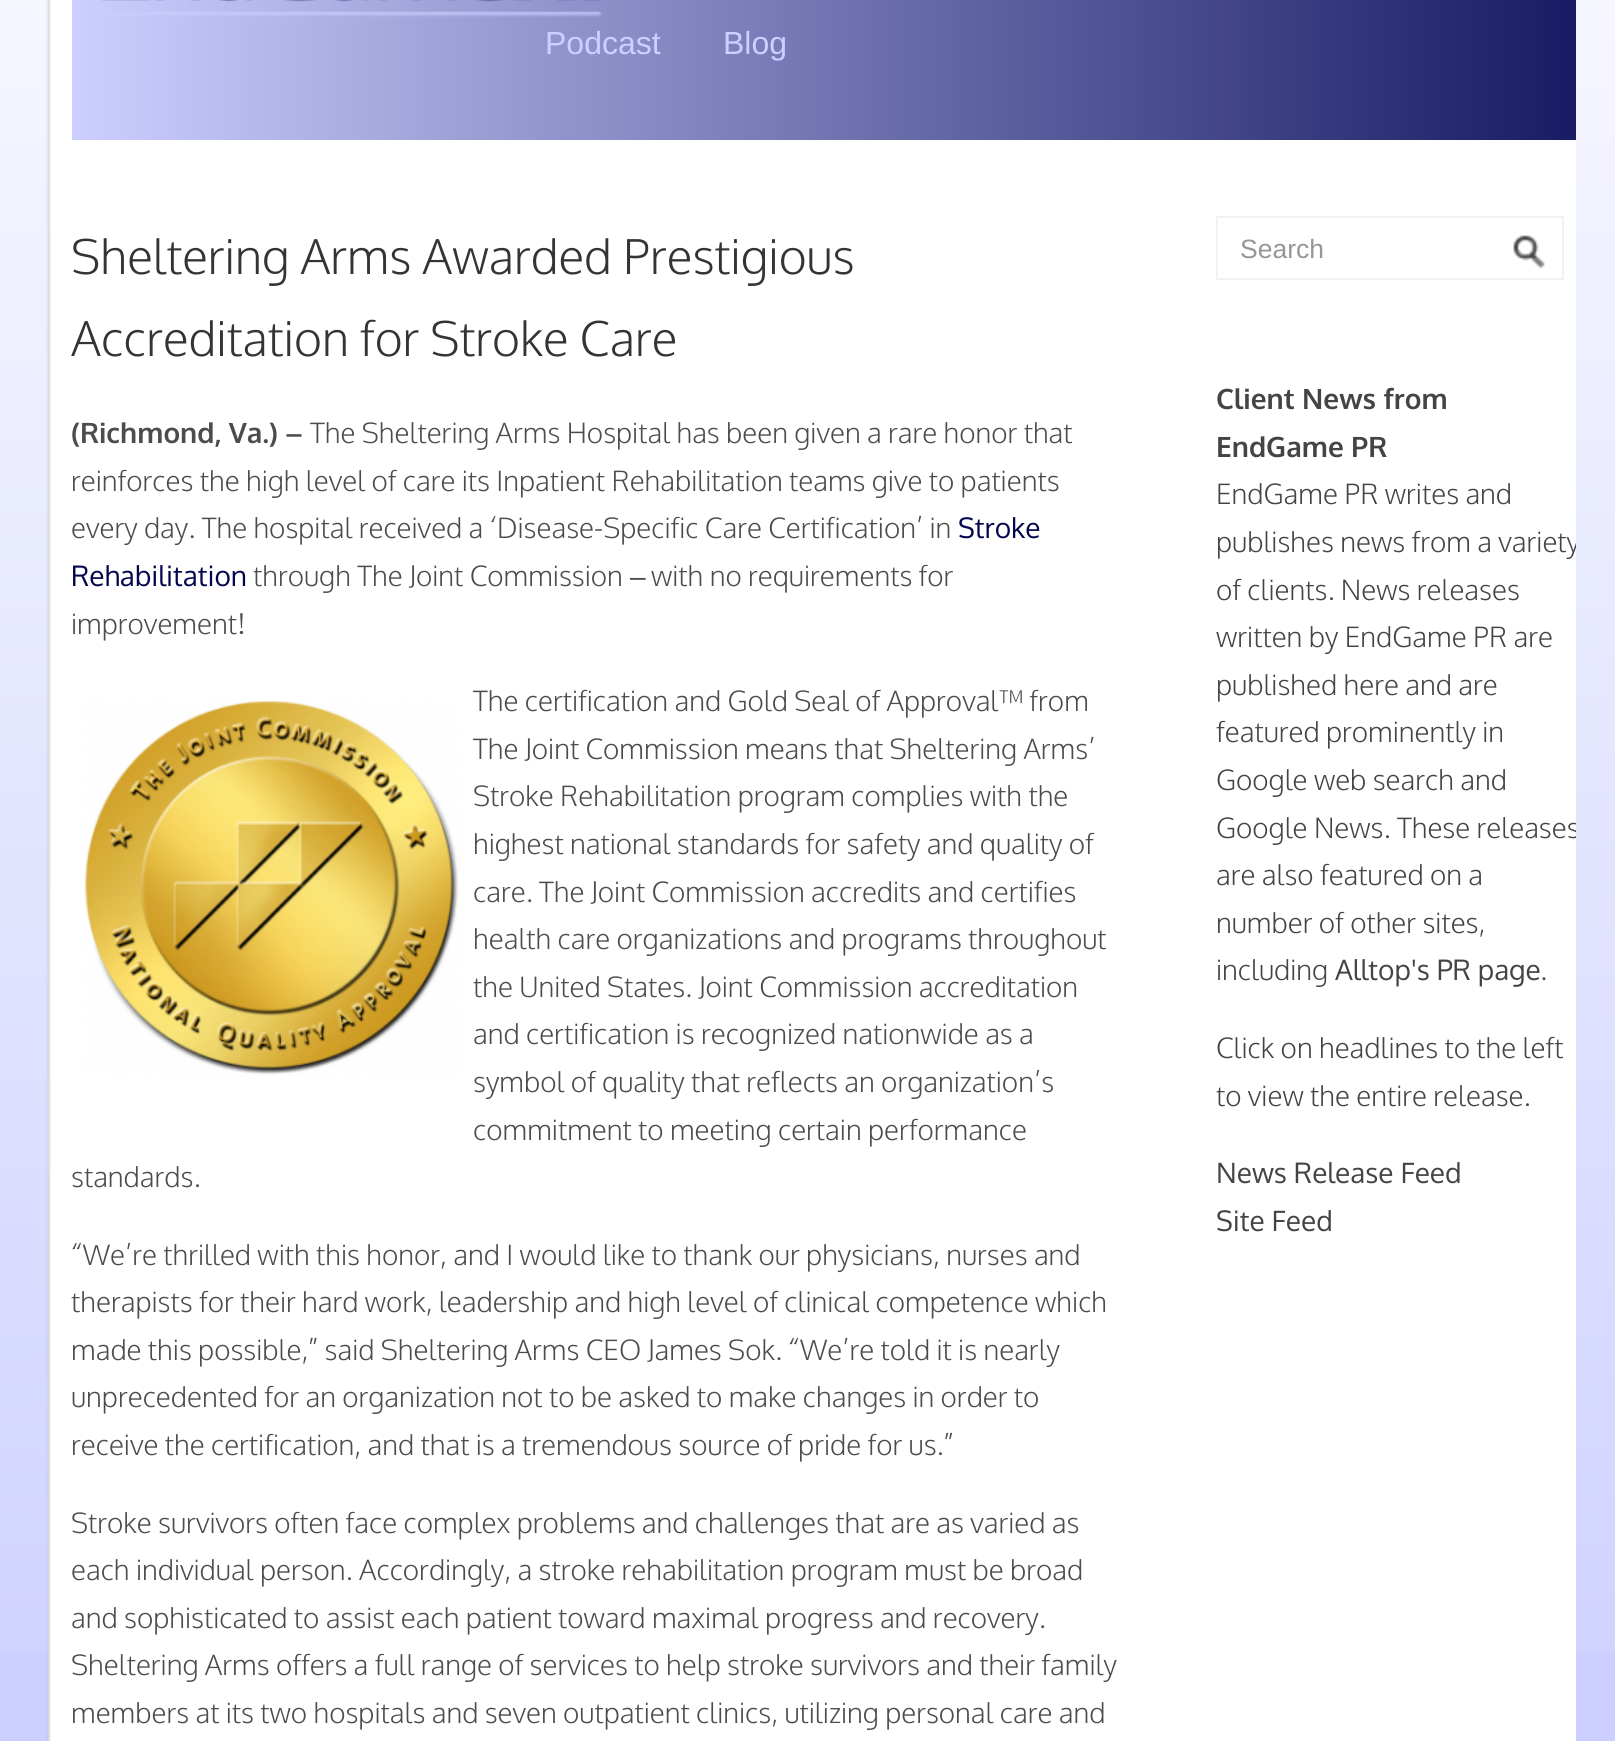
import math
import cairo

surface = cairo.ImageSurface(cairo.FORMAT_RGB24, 1615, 1741)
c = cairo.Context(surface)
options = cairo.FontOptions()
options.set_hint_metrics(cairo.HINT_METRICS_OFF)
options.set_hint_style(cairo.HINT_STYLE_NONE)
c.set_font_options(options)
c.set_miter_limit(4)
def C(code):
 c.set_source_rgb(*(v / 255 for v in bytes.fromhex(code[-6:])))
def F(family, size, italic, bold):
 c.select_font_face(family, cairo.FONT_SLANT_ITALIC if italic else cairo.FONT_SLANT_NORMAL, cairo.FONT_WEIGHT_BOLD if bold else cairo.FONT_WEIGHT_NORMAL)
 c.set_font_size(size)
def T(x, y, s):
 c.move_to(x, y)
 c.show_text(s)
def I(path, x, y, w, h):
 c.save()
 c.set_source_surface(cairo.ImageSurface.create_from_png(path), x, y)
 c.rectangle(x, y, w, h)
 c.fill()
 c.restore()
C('cccfff')
c.paint()
I('1.png',0,0,1615,1650)
I('2.png',46,0,1530,1741)
I('3.png',72,0,1504,140)
I('4.png',102,0,500,17)
F('Liberation Sans',32,0,0)
C('cccfff')
T(545,54,'Podcast')
T(723,54,'Blog')
F('Oxygen Light',48,0,0)
C('343434')
T(71,274,'Sheltering Arms Awarded Prestigious')
T(71,356,'Accreditation for Stroke Care')
F('Oxygen',28,0,1)
C('4c4c4c')
T(71,443,'(Richmond, Va.) –')
F('Oxygen Light',28,0,0)
T(310,443,'The Sheltering Arms Hospital has been given a rare honor that')
T(71,491,'reinforces the high level of care its Inpatient Rehabilitation teams give to patients')
T(71,538,'every day. The hospital received a ‘Disease-Specific Care Certification’ in')
F('Oxygen',28,0,0)
C('04074e')
T(958,538,'Stroke')
T(71,586,'Rehabilitation')
F('Oxygen Light',28,0,0)
C('4c4c4c')
T(253,586,'through The Joint Commission')
F('Liberation Sans',28,0,0)
T(630,586,'–')
F('Oxygen Light',28,0,0)
T(651,586,'with no requirements for')
T(71,634,'improvement!')
I('5.png',85,701,374,374)
T(473,711,'The certification and Gold Seal of Approval™ from')
T(473,759,'The Joint Commission means that Sheltering Arms’')
T(473,806,'Stroke Rehabilitation program complies with the')
T(473,854,'highest national standards for safety and quality of')
T(473,902,'care. The Joint Commission accredits and certifies')
T(473,949,'health care organizations and programs throughout')
T(473,997,'the United States. Joint Commission accreditation')
T(473,1044,'and certification is recognized nationwide as a')
T(473,1092,'symbol of quality that reflects an organization’s')
T(473,1140,'commitment to meeting certain performance')
T(71,1187,'standards.')
T(71,1265,'“We’re thrilled with this honor, and I would like to thank our physicians, nurses and')
T(71,1312,'therapists for their hard work, leadership and high level of clinical competence which')
T(71,1360,'made this possible,” said Sheltering Arms CEO James Sok. “We’re told it is nearly')
T(71,1407,'unprecedented for an organization not to be asked to make changes in order to')
T(71,1455,'receive the certification, and that is a tremendous source of pride for us.”')
T(71,1533,'Stroke survivors often face complex problems and challenges that are as varied as')
T(71,1580,'each individual person. Accordingly, a stroke rehabilitation program must be broad')
T(71,1628,'and sophisticated to assist each patient toward maximal progress and recovery.')
T(71,1675,'Sheltering Arms offers a full range of services to help stroke survivors and their family')
T(71,1723,'members at its two hospitals and seven outpatient clinics, utilizing personal care and')
c.rectangle(1217,217,346,62)
C('f2f2f2')
c.stroke()
F('Liberation Sans',26.5,0,0)
C('969696')
T(1240,258,'Search')
I('6.png',1513,235,32,34)
F('Oxygen',28,0,1)
C('444444')
T(1216,409,'Client News from')
T(1216,457,'EndGame PR')
F('Oxygen Light',28,0,0)
T(1216,504,'EndGame PR writes and')
c.save()
c.new_path()
c.move_to(72,-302)
c.line_to(1552,-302)
c.curve_to(1565.5,-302,1576,-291.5,1576,-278)
c.line_to(1576,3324)
c.line_to(42,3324)
c.line_to(42,-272)
c.curve_to(42,-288.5,55.5,-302,72,-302)
c.close_path()
c.clip()
T(1216,552,'publishes news from a variety')
c.restore()
T(1216,600,'of clients. News releases')
T(1216,647,'written by EndGame PR are')
T(1216,695,'published here and are')
T(1216,742,'featured prominently in')
T(1216,790,'Google web search and')
c.save()
c.new_path()
c.move_to(72,-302)
c.line_to(1552,-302)
c.curve_to(1565.5,-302,1576,-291.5,1576,-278)
c.line_to(1576,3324)
c.line_to(42,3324)
c.line_to(42,-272)
c.curve_to(42,-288.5,55.5,-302,72,-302)
c.close_path()
c.clip()
T(1216,838,'Google News. These releases')
c.restore()
T(1216,885,'are also featured on a')
T(1216,933,'number of other sites,')
T(1216,980,'including')
F('Oxygen',28,0,0)
T(1335,980,'Alltop\'s PR page')
F('Oxygen Light',28,0,0)
T(1540,980,'.')
T(1216,1058,'Click on headlines to the left')
T(1216,1106,'to view the entire release.')
F('Oxygen',28,0,0)
T(1216,1183,'News Release Feed')
T(1216,1231,'Site Feed')
surface.write_to_png('o.png')
